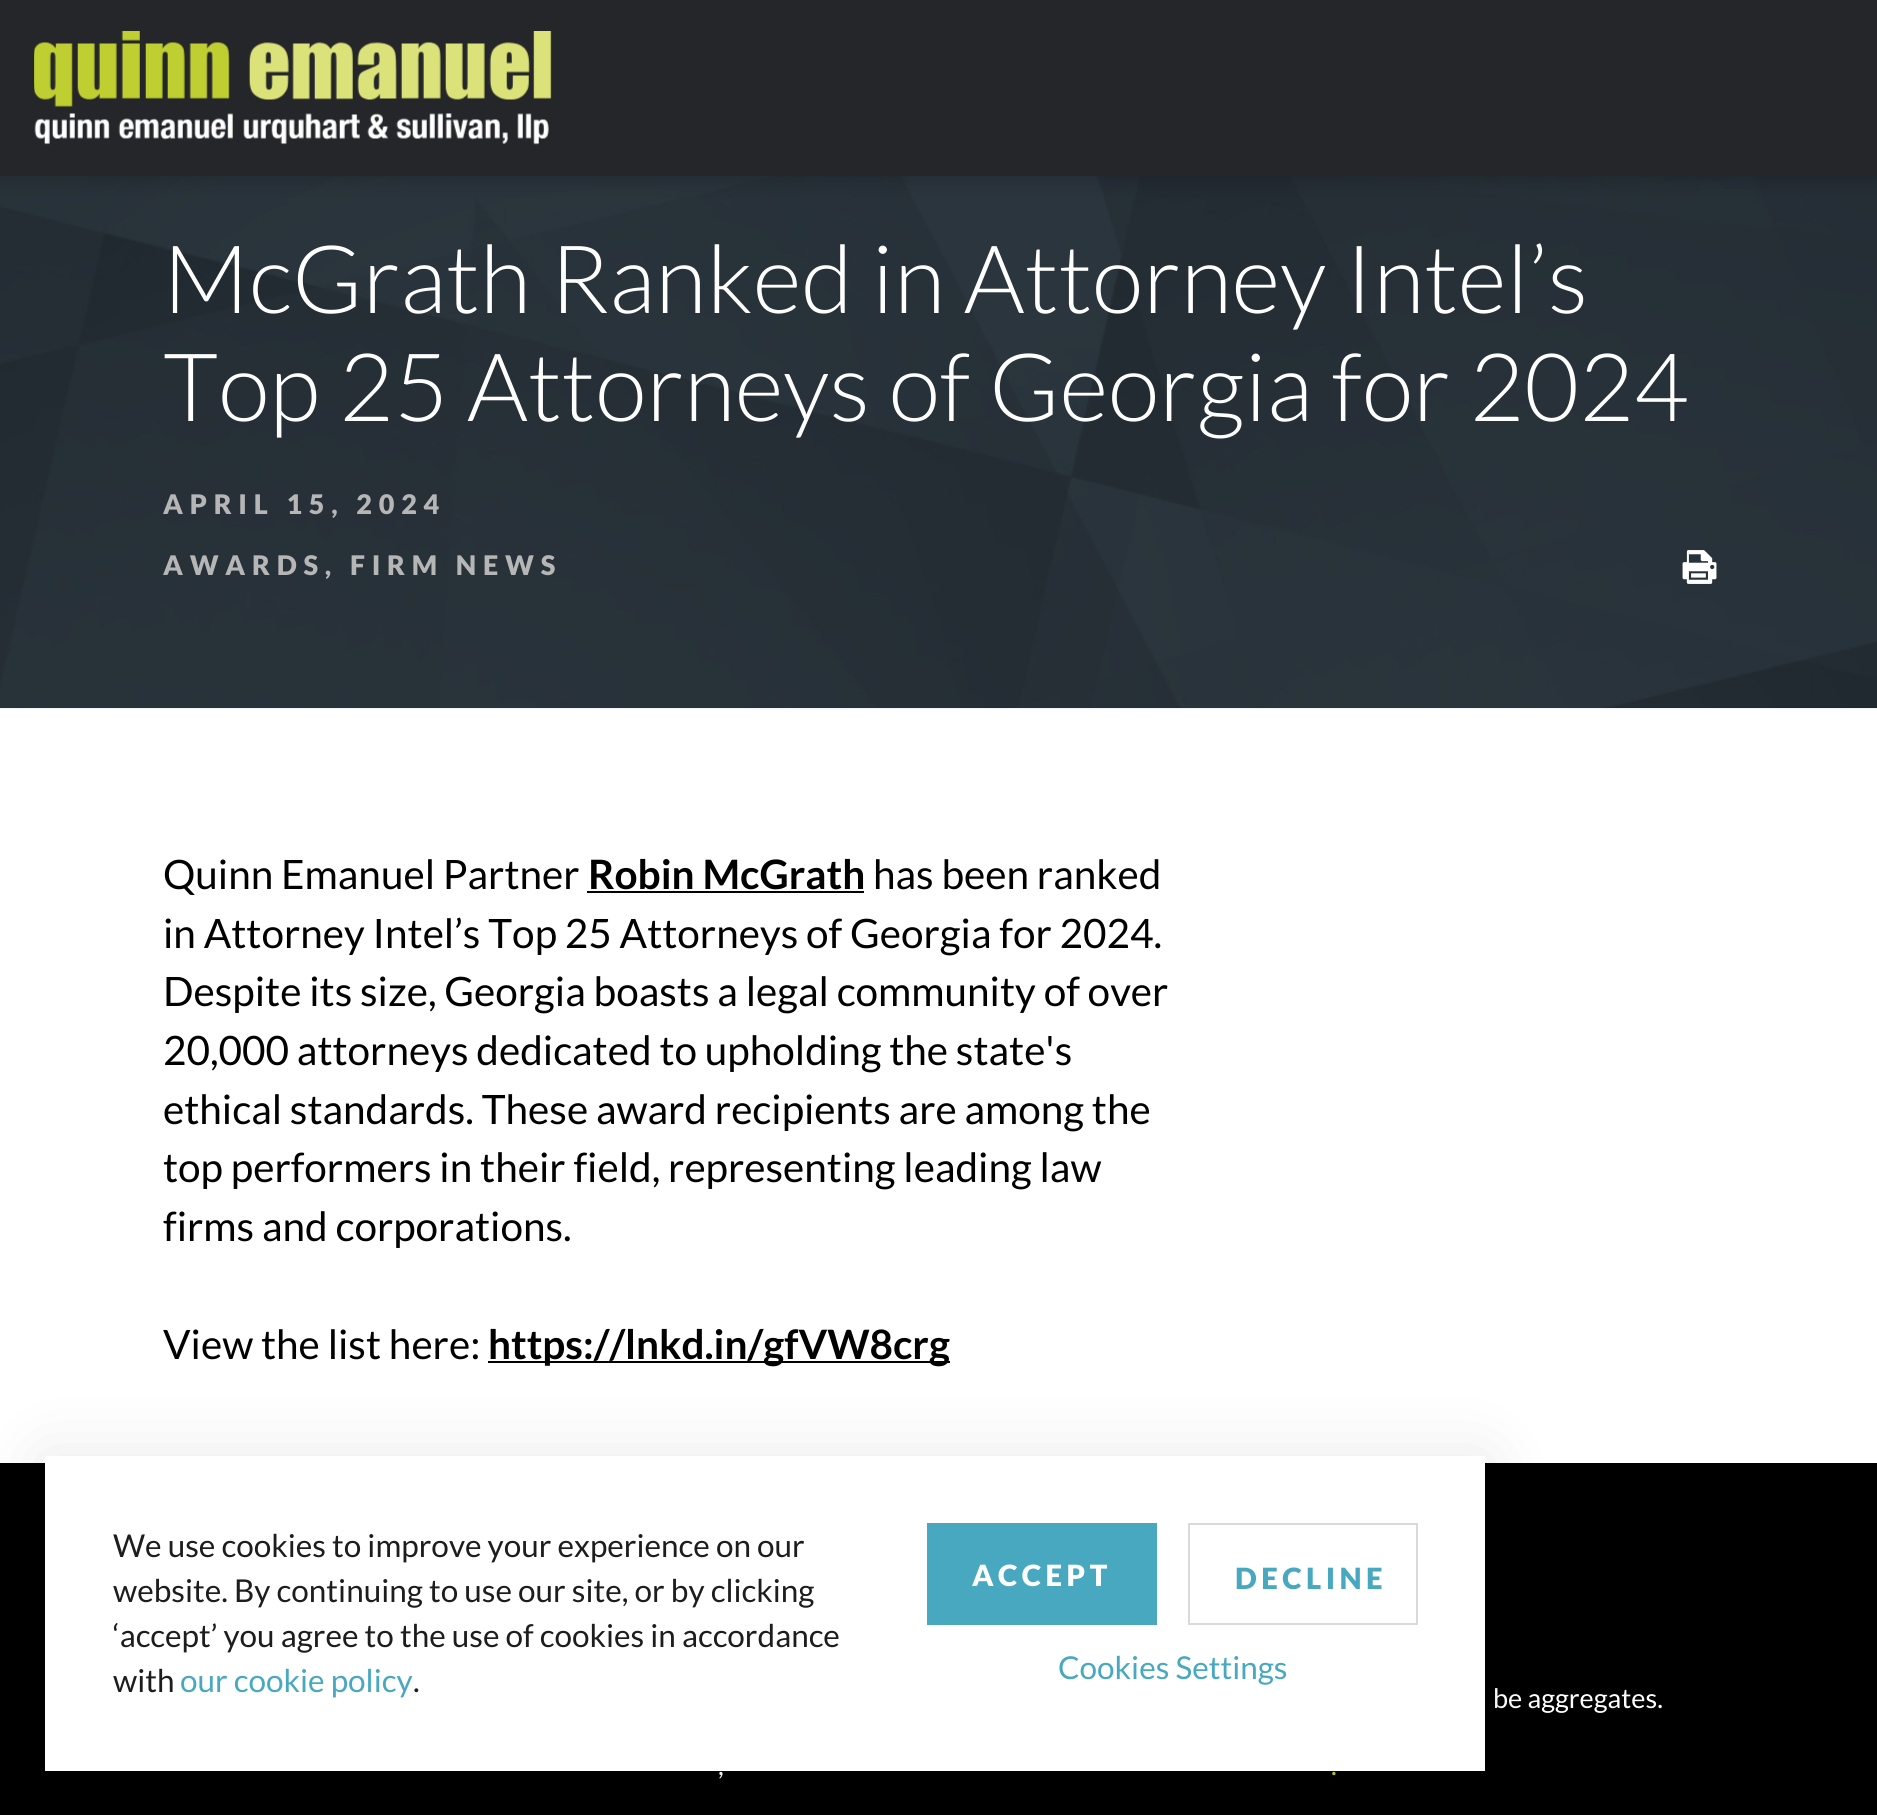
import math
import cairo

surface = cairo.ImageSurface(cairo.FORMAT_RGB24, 1877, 1815)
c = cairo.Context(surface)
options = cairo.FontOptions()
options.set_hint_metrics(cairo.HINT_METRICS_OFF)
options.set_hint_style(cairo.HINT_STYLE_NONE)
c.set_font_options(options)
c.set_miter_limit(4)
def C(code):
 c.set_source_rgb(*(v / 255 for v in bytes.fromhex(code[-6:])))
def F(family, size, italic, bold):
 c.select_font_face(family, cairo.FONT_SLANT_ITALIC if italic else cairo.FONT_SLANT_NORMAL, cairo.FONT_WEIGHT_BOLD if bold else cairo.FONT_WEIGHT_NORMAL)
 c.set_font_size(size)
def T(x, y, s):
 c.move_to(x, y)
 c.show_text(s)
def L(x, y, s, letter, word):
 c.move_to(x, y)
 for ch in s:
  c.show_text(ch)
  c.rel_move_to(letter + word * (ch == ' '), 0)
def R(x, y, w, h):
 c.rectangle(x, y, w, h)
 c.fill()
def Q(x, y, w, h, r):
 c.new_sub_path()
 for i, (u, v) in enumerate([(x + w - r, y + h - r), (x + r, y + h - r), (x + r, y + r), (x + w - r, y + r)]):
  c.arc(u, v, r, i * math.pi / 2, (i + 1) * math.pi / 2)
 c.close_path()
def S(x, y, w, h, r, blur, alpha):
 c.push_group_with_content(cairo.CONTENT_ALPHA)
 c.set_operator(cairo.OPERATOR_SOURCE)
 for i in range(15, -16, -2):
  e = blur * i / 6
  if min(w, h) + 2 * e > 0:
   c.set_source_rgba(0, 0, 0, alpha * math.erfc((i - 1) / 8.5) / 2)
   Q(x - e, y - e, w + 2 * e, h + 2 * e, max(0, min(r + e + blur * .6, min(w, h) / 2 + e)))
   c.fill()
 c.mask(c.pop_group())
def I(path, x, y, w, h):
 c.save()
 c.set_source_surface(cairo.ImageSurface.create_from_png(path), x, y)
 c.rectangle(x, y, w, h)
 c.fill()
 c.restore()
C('ffffff')
c.paint()
I('2.png',0,176,1877,533)
C('000000')
S(0,5,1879,175,0,11,.2)
C('252629')
R(0,0,1877,176)
I('1.png',34,31,518,114)
F('Lato Light',94.5,0,0)
C('ffffff')
L(163,313,'McGrath Ranked in Attorney Intel’s',0,.5)
L(163,421,'Top 25 Attorneys of Georgia for 2024',0,.5)
F('Lato Black',27,0,0)
C('b6b6b6')
L(163,514,'APRIL 15, 2024',6.75,0)
L(163,575,'AWARDS, FIRM NEWS',6.75,0)
I('3.png',1682,550,35,34)
F('Lato',40.5,0,0)
C('000000')
T(163,889,'Quinn Emanuel Partner')
F('Lato',40.5,0,1)
T(588,889,'Robin McGrath')
R(587,891,277,2)
F('Lato',40.5,0,0)
T(873,889,'has been ranked')
T(163,948,'in Attorney Intel’s Top 25 Attorneys of Georgia for 2024.')
T(163,1006,'Despite its size, Georgia boasts a legal community of over')
T(163,1065,'20,000 attorneys dedicated to upholding the state\'s')
T(163,1124,'ethical standards. These award recipients are among the')
T(163,1182,'top performers in their field, representing leading law')
T(163,1241,'firms and corporations.')
T(163,1359,'View the list here:')
R(488,1361,462,2)
F('Lato',40.5,0,1)
T(488,1359,'https://lnkd.in/gfVW8crg')
R(0,1463,1877,352)
F('Lato',27,0,0)
C('ffffff')
T(1493,1708,'be aggregates.')
T(718,1775,',')
C('c0cf13')
T(1331,1775,'.')
C('000000')
S(45,1460,1440,315,0,34,.1)
C('ffffff')
R(45,1456,1440,315)
F('Lato',31.5,0,0)
C('1d1d1d')
T(113,1557,'We use cookies to improve your experience on our')
T(113,1602,'website. By continuing to use our site, or by clicking')
T(113,1647,'‘accept’ you agree to the use of cookies in accordance')
T(113,1692,'with')
C('48a8c0')
T(180,1692,'our cookie policy')
C('1d1d1d')
T(413,1692,'.')
C('48a8c0')
R(927,1523,230,102)
F('Lato Black',29.25,0,0)
C('ffffff')
L(972,1586,'ACCEPT',4.5,0)
c.rectangle(1189,1524,228,100)
C('d9d9d9')
c.stroke()
C('48a8c0')
L(1235,1589,'DECLINE',4.5,0)
F('Lato',31.5,0,0)
T(1058,1679,'Cookies Settings')
surface.write_to_png('o.png')
